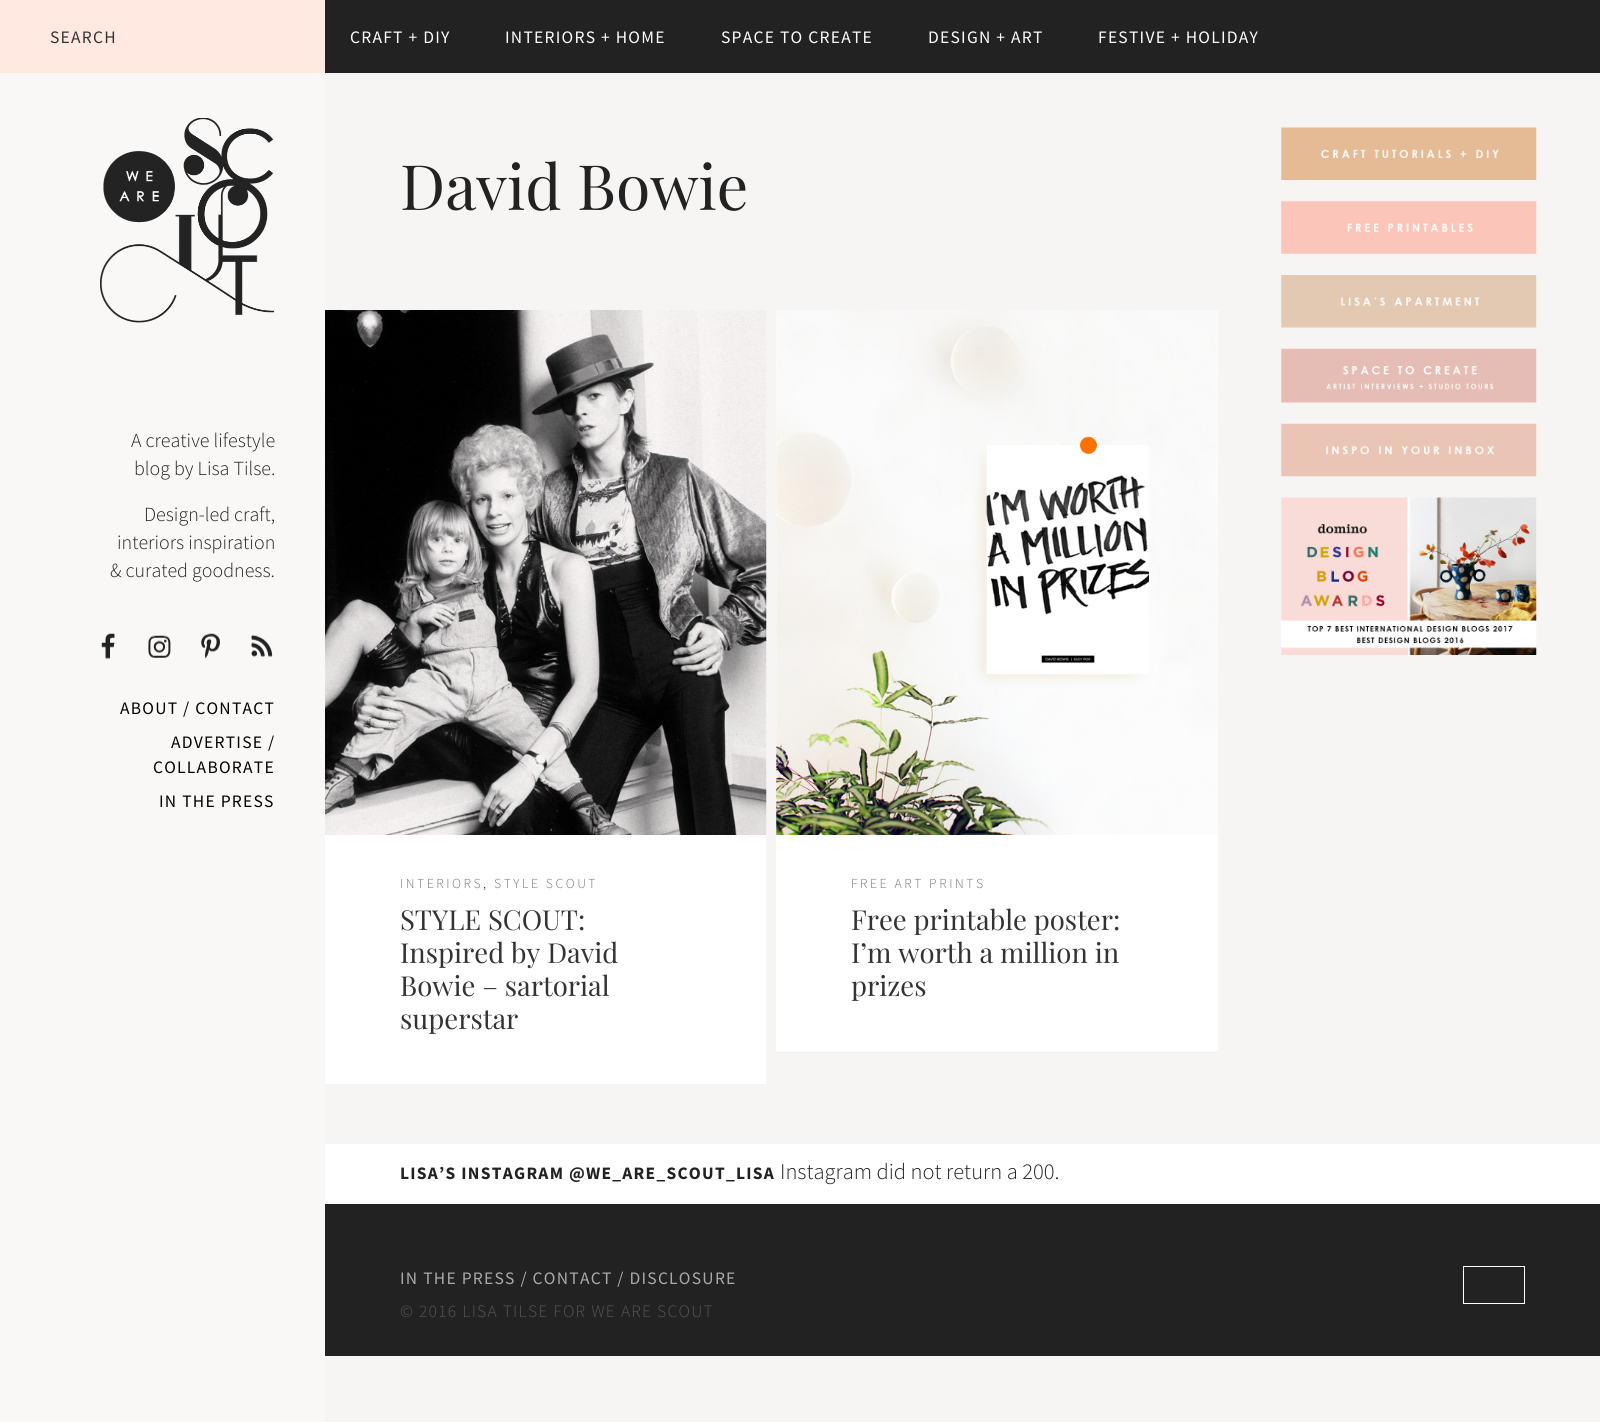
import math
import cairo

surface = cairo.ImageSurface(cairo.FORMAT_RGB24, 1600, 1422)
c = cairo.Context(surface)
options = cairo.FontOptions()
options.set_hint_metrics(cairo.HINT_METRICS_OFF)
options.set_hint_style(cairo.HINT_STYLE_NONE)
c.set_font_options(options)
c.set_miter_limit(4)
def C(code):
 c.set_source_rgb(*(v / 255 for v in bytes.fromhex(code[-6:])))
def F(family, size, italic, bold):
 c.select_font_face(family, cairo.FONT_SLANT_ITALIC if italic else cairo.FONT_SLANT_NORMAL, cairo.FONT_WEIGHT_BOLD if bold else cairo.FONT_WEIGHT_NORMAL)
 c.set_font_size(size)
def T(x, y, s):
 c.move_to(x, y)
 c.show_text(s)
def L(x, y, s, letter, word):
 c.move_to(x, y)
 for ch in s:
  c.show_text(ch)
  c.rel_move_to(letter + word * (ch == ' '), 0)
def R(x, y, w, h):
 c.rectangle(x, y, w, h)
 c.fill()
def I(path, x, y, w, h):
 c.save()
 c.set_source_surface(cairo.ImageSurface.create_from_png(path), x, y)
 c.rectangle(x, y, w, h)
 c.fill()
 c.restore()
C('f6f5f4')
c.paint()
C('f9f8f7')
R(0,73,325,1349)
C('ffe9e1')
R(0,0,325,73)
F('Source Sans Pro',17.5,0,0)
C('333333')
L(50,43,'SEARCH',1.25,0)
I('1.png',100,118,175,205)
F('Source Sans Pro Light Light',20,0,0)
C('222222')
T(131,447,'A creative lifestyle')
T(134,475,'blog by Lisa Tilse.')
T(144,521,'Design-led craft,')
T(117,549,'interiors inspiration')
T(110,577,'& curated goodness.')
I('2.png',101,633,14,26)
I('3.png',148,635,23,23)
I('4.png',201,633,19,26)
I('5.png',251,634,22,23)
F('Source Sans Pro',17.5,0,0)
C('000000')
L(120,714,'ABOUT / CONTACT',1.25,0)
L(171,748,'ADVERTISE /',1.25,0)
L(153,773,'COLLABORATE',1.25,0)
L(159,807,'IN THE PRESS',1.25,0)
F('Playfair Display',62.5,0,0)
C('222222')
T(400,210,'David Bowie')
C('ffffff')
R(325,835,441,249)
I('6.png',325,310,442,525)
F('Source Sans Pro Light Light',13.75,0,0)
C('777777')
L(400,888,'INTERIORS',2.5,0)
C('222222')
L(483,888,',',2.5,0)
C('777777')
L(494,888,'STYLE SCOUT',2.5,0)
F('Playfair Display',27.5,0,0)
C('333333')
T(400,930,'STYLE SCOUT:')
T(400,963,'Inspired by David')
T(400,996,'Bowie – sartorial')
T(400,1029,'superstar')
C('ffffff')
R(776,310,442,741)
I('7.png',776,310,442,525)
F('Source Sans Pro Light Light',13.75,0,0)
C('777777')
L(851,888,'FREE ART PRINTS',2.5,0)
F('Playfair Display',27.5,0,0)
C('333333')
T(851,930,'Free printable poster:')
T(851,963,'I’m worth a million in')
T(851,996,'prizes')
I('8.png',1281,127,256,53)
I('9.png',1281,201,256,53)
I('10.png',1281,275,256,53)
I('11.png',1281,348,256,55)
I('12.png',1281,423,256,54)
I('13.png',1281,497,256,158)
C('ffffff')
R(325,1144,1275,60)
F('Source Sans Pro',17.5,0,1)
C('222222')
L(400,1179,'LISA’S INSTAGRAM @WE_ARE_SCOUT_LISA',1.25,0)
F('Source Sans Pro Light Light',22.5,0,0)
T(780,1179,'Instagram did not return a 200.')
R(325,1204,1275,152)
F('Source Sans Pro',17.5,0,0)
C('aaaaaa')
L(400,1284,'IN THE PRESS / CONTACT / DISCLOSURE',1.25,0)
c.rectangle(1463.5,1266.5,61,37)
C('ffffff')
c.set_line_width(1)
c.stroke()
F('Source Sans Pro Light Light',17.5,0,0)
C('555555')
L(400,1317,'© 2016 LISA TILSE FOR WE ARE SCOUT',1.25,0)
C('222222')
R(325,0,1275,73)
F('Source Sans Pro',17.5,0,0)
C('ffffff')
L(350,43,'CRAFT + DIY',1.25,0)
L(505,43,'INTERIORS + HOME',1.25,0)
L(721,43,'SPACE TO CREATE',1.25,0)
L(928,43,'DESIGN + ART',1.25,0)
L(1098,43,'FESTIVE + HOLIDAY',1.25,0)
surface.write_to_png('o.png')
